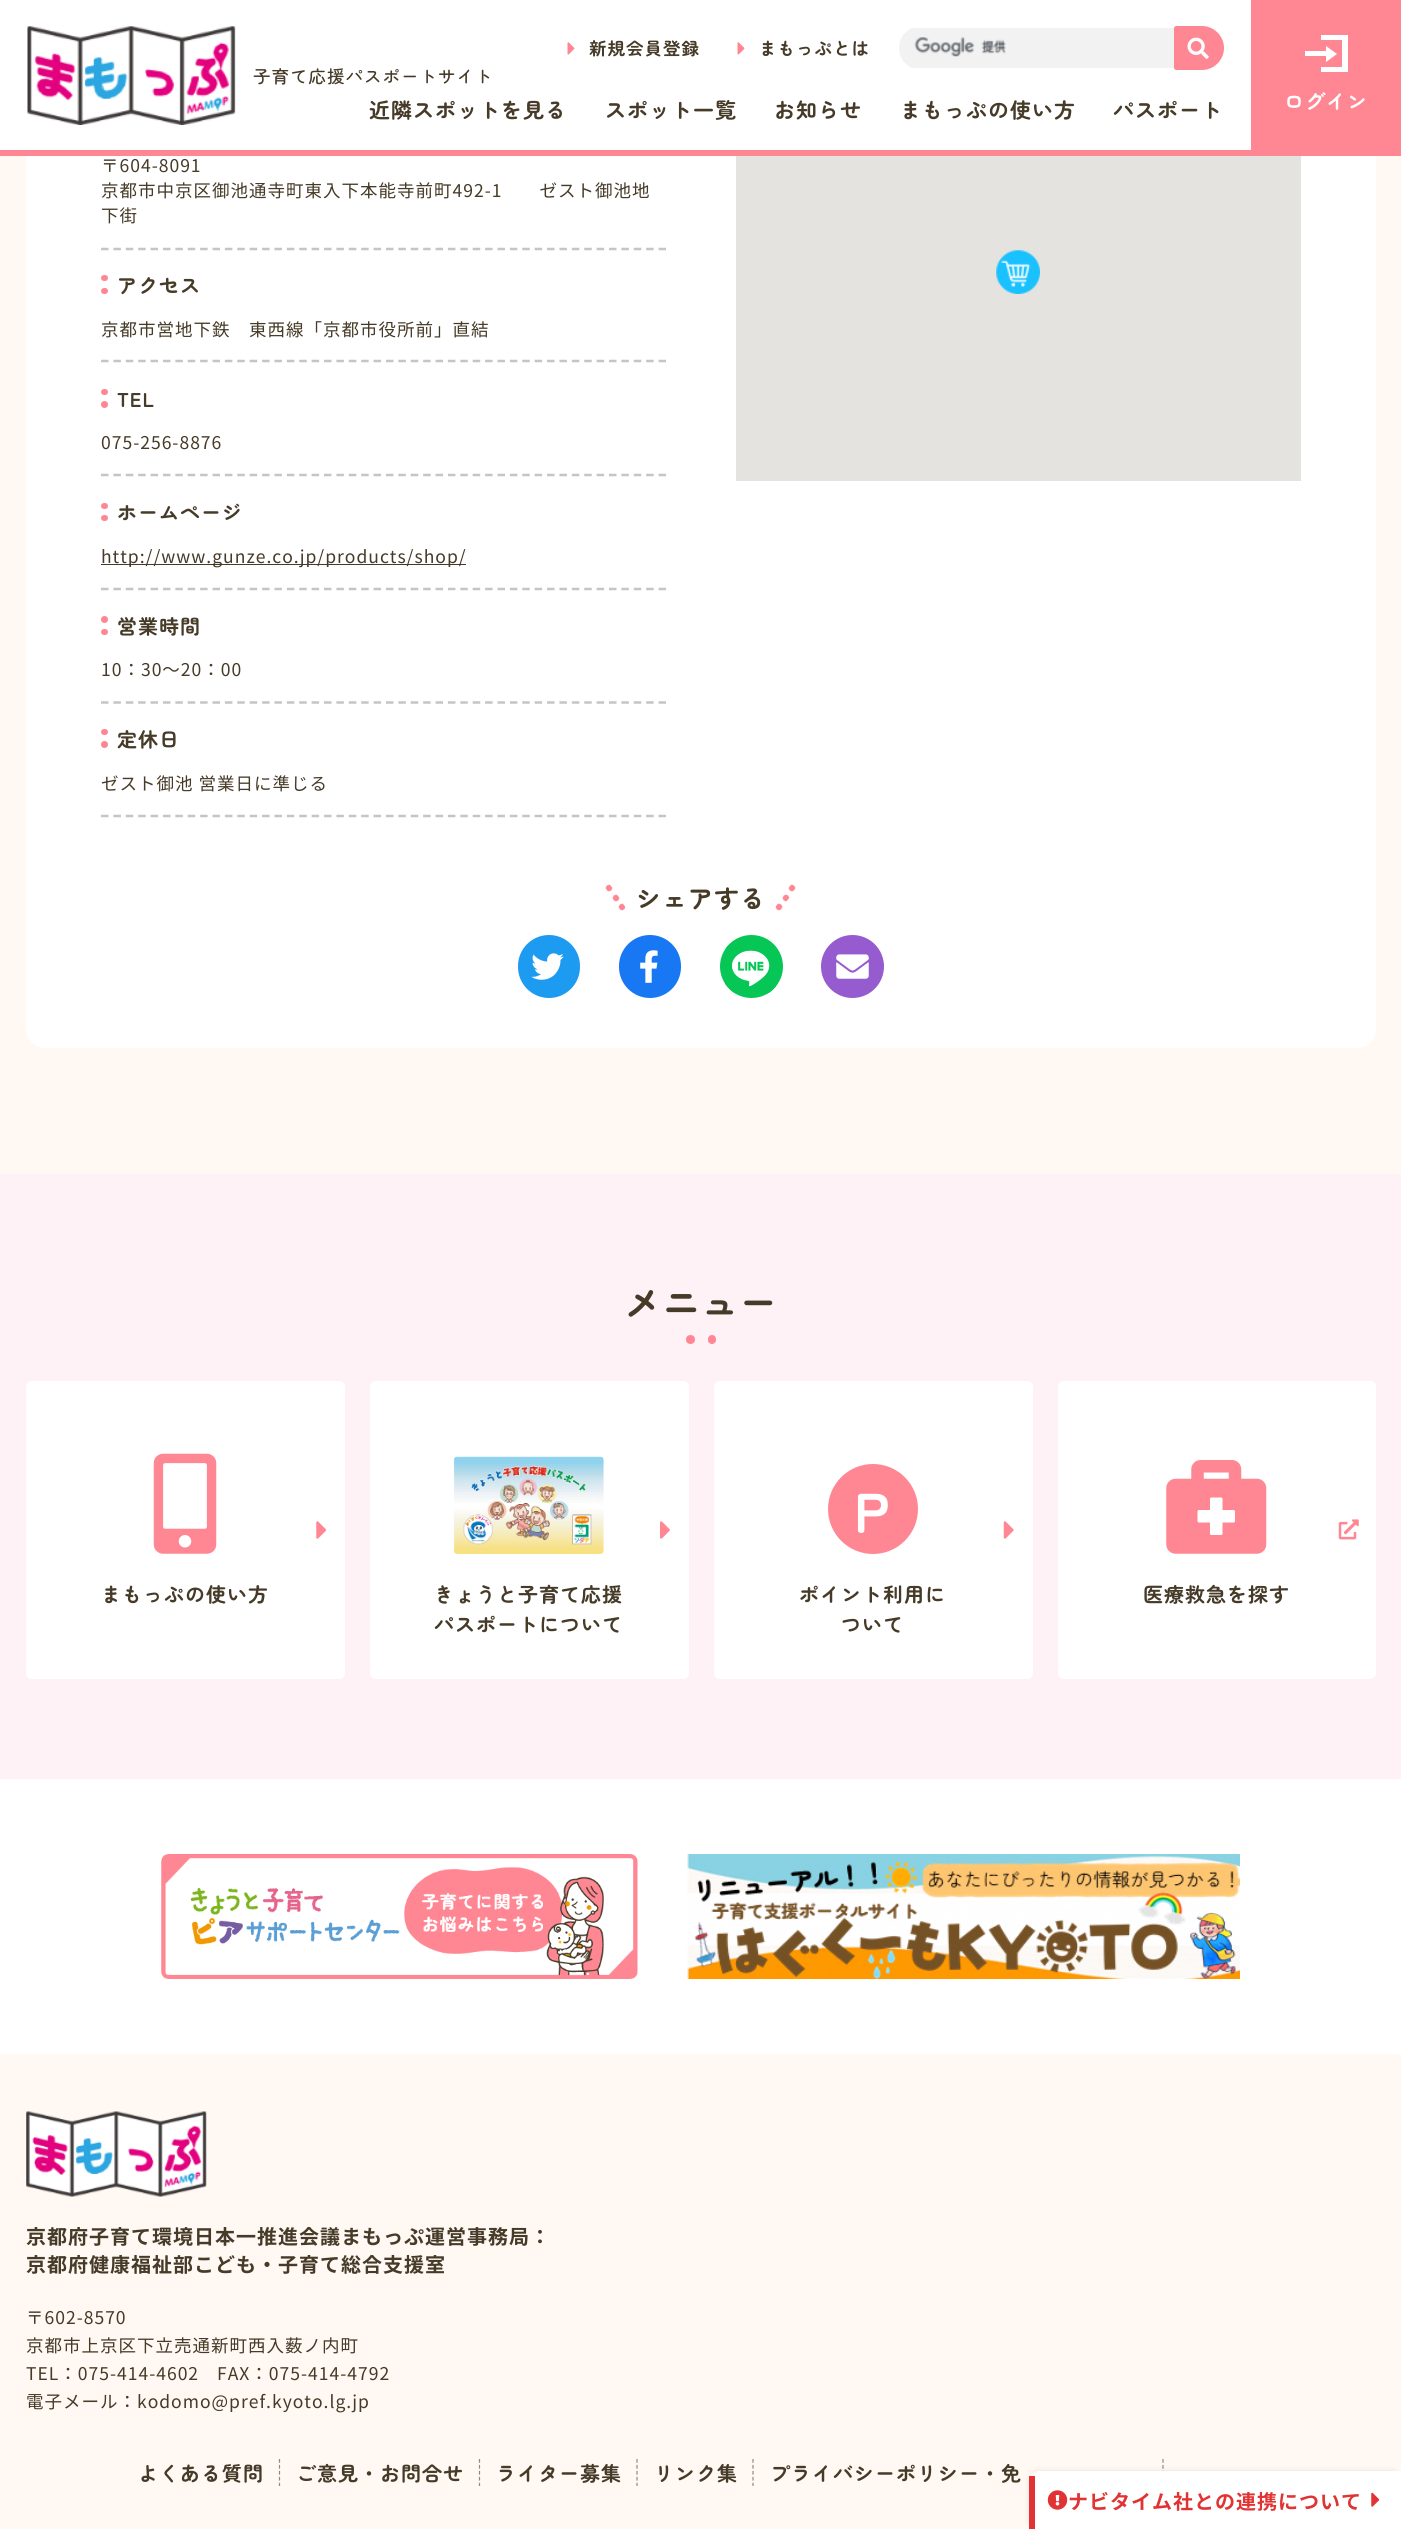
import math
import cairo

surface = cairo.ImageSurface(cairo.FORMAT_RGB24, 1401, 2529)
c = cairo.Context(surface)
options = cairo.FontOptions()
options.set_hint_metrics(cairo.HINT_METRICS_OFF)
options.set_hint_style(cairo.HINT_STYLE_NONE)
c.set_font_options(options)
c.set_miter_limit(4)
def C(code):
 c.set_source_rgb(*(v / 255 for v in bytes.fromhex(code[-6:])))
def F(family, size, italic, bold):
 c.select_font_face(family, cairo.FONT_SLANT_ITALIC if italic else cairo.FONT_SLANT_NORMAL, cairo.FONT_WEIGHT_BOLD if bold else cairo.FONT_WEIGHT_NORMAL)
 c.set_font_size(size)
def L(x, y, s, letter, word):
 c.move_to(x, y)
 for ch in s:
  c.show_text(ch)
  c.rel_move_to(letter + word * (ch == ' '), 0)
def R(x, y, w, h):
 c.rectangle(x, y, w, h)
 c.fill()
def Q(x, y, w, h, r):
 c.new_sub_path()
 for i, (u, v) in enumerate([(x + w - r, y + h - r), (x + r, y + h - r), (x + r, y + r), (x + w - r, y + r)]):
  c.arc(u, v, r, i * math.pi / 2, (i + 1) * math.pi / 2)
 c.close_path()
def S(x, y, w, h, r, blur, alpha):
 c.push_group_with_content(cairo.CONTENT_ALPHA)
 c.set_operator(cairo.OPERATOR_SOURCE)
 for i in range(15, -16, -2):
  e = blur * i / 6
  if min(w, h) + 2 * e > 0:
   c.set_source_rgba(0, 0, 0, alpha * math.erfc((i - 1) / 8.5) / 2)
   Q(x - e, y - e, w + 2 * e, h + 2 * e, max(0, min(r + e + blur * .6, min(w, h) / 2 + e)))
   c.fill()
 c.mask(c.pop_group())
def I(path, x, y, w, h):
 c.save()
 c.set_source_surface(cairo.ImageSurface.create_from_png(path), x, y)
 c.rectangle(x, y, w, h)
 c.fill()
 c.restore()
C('fff8f3')
c.paint()
C('ffffff')
R(0,0,26,150)
Q(26,-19,1350,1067,19)
c.fill()
C('ff8793')
R(0,150,1401,6)
I('1.png',567,42,8,13)
F('Zen Maru Gothic',17.5,0,1)
C('463a28')
L(589,55,'新規会員登録',1,0)
I('1.png',737,42,8,13)
L(759,55,'まもっぷとは',1,0)
I('2.png',27,26,209,99)
F('Zen Maru Gothic Medium',17.5,0,0)
L(253,83,'子育て応援パスポートサイト',1,0)
c.save()
Q(899,26,325,44,22)
c.clip()
C('f2f2f2')
R(899,28,275,40)
c.restore()
I('3.png',914,37,92,20)
C('ff8793')
c.new_path()
c.move_to(1176.5,26)
c.line_to(1202,26)
c.curve_to(1214,26,1224,36,1224,48)
c.curve_to(1224,60,1214,70,1202,70)
c.line_to(1176.5,70)
c.curve_to(1175,70,1174,69,1174,67.5)
c.line_to(1174,28.5)
c.curve_to(1174,27,1175,26,1176.5,26)
c.close_path()
c.fill()
I('4.png',1187,37,22,22)
F('Zen Maru Gothic',21,0,1)
C('463a28')
L(369,118,'近隣スポットを見る',1,0)
L(605,118,'スポット一覧',1,0)
L(774,118,'お知らせ',1,0)
L(900,118,'まもっぷの使い方',1,0)
L(1113,118,'パスポート',1,0)
C('ff8793')
R(1251,0,150,150)
C('ffffff')
c.new_path()
c.move_to(1321,35)
c.line_to(1321,40)
c.line_to(1342,40)
c.line_to(1342,67)
c.line_to(1321,67)
c.line_to(1321,72)
c.line_to(1348,72)
c.line_to(1348,35)
c.close_path()
c.move_to(1326,46)
c.line_to(1326,51)
c.line_to(1305,51)
c.line_to(1305,56)
c.line_to(1326,56)
c.line_to(1326,62)
c.line_to(1337,54)
c.close_path()
c.fill()
F('Zen Maru Gothic',20,0,1)
L(1284,109,'ログイン',1,0)
c.new_path()
c.move_to(101,249)
c.line_to(666,249)
C('c5c5c5')
c.set_line_width(2.5)
c.set_dash([7.5,4.89])
c.stroke()
F('Noto Sans JP',17.5,0,0)
C('463a28')
L(101,172,'〒604-8091',1,0)
L(101,197,'京都市中京区御池通寺町東入下本能寺前町492-1　　ゼスト御池地',1,0)
L(101,222,'下街',1,0)
c.new_path()
c.move_to(101,361)
c.line_to(666,361)
C('c5c5c5')
c.stroke()
C('ff8793')
Q(101,275,7,6,3)
c.fill()
F('Zen Maru Gothic',20,0,1)
C('463a28')
L(117,293,'アクセス',1,0)
C('ff8793')
Q(101,288,7,6,3)
c.fill()
F('Noto Sans JP',17.5,0,0)
C('463a28')
L(101,336,'京都市営地下鉄　東西線「京都市役所前」直結',1,0)
c.new_path()
c.move_to(101,475)
c.line_to(666,475)
C('c5c5c5')
c.stroke()
C('ff8793')
Q(101,389,7,6,3)
c.fill()
c.arc(104.5,404.5,3.5,0,2 * math.pi)
c.fill()
F('Zen Maru Gothic',20,0,1)
C('463a28')
L(117,407,'TEL',1,0)
F('Noto Sans JP',17.5,0,0)
L(101,449,'075-256-8876',1,0)
c.new_path()
c.move_to(101,589)
c.line_to(666,589)
C('c5c5c5')
c.stroke()
C('ff8793')
Q(101,503,7,6,3)
c.fill()
F('Zen Maru Gothic',20,0,1)
C('463a28')
L(117,520,'ホームページ',1,0)
C('ff8793')
Q(101,515,7,6,3)
c.fill()
C('463a28')
R(101,564,365,1)
F('Noto Sans JP',17.5,0,0)
L(101,563,'http://www.gunze.co.jp/products/shop/',1,0)
c.new_path()
c.move_to(101,702.5)
c.line_to(666,702.5)
C('c5c5c5')
c.stroke()
C('ff8793')
c.arc(104.5,619.5,3.5,0,2 * math.pi)
c.fill()
F('Zen Maru Gothic',20,0,1)
C('463a28')
L(117,634,'営業時間',1,0)
C('ff8793')
Q(101,629,7,6,3)
c.fill()
F('Noto Sans JP',17.5,0,0)
C('463a28')
L(101,676,'10：30～20：00',1,0)
c.new_path()
c.move_to(101,816)
c.line_to(666,816)
C('c5c5c5')
c.stroke()
C('ff8793')
Q(101,729,7,6,3)
c.fill()
F('Zen Maru Gothic',20,0,1)
C('463a28')
L(117,747,'定休日',1,0)
C('ff8793')
c.new_path()
c.arc(104.5,744.5,3.5,0,2 * math.pi)
c.fill()
F('Noto Sans JP',17.5,0,0)
C('463a28')
L(101,790,'ゼスト御池 営業日に準じる',1,0)
C('e5e3df')
R(736,156,565,325)
I('5.png',996,250,44,44)
gradient = cairo.RadialGradient(616,898,0,616,898,12)
gradient.add_color_stop_rgba(.21,1,0.529,0.576,1)
gradient.add_color_stop_rgba(.32,1,1,1,1)
c.set_source(gradient)
c.new_path()
c.move_to(611.5,886.5)
c.line_to(624.5,905)
c.line_to(619.5,908.5)
c.line_to(606.5,890.5)
c.close_path()
c.fill()
gradient = cairo.RadialGradient(609,888,0,609,888,12)
gradient.add_color_stop_rgba(.21,1,0.529,0.576,1)
gradient.add_color_stop_rgba(.32,1,0.529,0.576,0)
c.set_source(gradient)
c.new_path()
c.move_to(609.5,883.5)
c.line_to(618,896)
c.line_to(613,899.5)
c.line_to(604.5,887)
c.close_path()
c.fill()
gradient = cairo.RadialGradient(622,907,0,622,907,12)
gradient.add_color_stop_rgba(.21,1,0.529,0.576,1)
gradient.add_color_stop_rgba(.32,1,0.529,0.576,0)
c.set_source(gradient)
c.new_path()
c.move_to(618,896)
c.line_to(626.5,908.5)
c.line_to(621.5,912)
c.line_to(613,899.5)
c.close_path()
c.fill()
F('Zen Maru Gothic',25,0,1)
C('463a28')
L(636,908,'シェアする',1,0)
gradient = cairo.RadialGradient(786,898,0,786,898,12)
gradient.add_color_stop_rgba(.21,1,0.529,0.576,1)
gradient.add_color_stop_rgba(.32,1,1,1,1)
c.set_source(gradient)
c.new_path()
c.move_to(794.5,890.5)
c.line_to(781.5,908.5)
c.line_to(776.5,905)
c.line_to(789.5,886.5)
c.close_path()
c.fill()
gradient = cairo.RadialGradient(779,907,0,779,907,12)
gradient.add_color_stop_rgba(.21,1,0.529,0.576,1)
gradient.add_color_stop_rgba(.32,1,0.529,0.576,0)
c.set_source(gradient)
c.new_path()
c.move_to(774.5,908)
c.line_to(779.5,912)
c.line_to(788,899.5)
c.line_to(783,896)
c.line_to(782,897)
c.close_path()
c.fill()
gradient = cairo.RadialGradient(792,888,0,792,888,12)
gradient.add_color_stop_rgba(.21,1,0.529,0.576,1)
gradient.add_color_stop_rgba(.32,1,0.529,0.576,0)
c.set_source(gradient)
c.new_path()
c.move_to(783,896)
c.line_to(788,899.5)
c.line_to(796.5,887)
c.line_to(791.5,883.5)
c.close_path()
c.fill()
C('1d9bf0')
Q(518,935,62,63,31)
c.fill()
I('6.png',531,953,33,27)
C('1877f2')
Q(619,935,62,63,31)
c.fill()
I('7.png',640,950,18,33)
gradient = cairo.RadialGradient(751,966,0,751,966,44)
gradient.add_color_stop_rgba(.5,1,1,1,1)
gradient.add_color_stop_rgba(.5,0.024,0.78,0.333,1)
gradient.add_color_stop_rgba(1,0.024,0.78,0.333,1)
c.set_source(gradient)
c.arc(751.5,966.5,31.5,0,2 * math.pi)
c.fill()
I('8.png',725,943,52,51)
C('965bcf')
c.arc(852.5,966.5,31.5,0,2 * math.pi)
c.fill()
I('9.png',836,954,33,25)
C('fff2f7')
R(0,1174,1401,605)
F('Zen Maru Gothic',37.5,0,1)
C('463a28')
L(624,1317,'メニュー',1,0)
C('ff8793')
c.new_path()
c.arc(690.5,1339.5,4.5,0,2 * math.pi)
c.fill()
Q(708,1335,8,9,4)
c.fill()
C('ffffff')
Q(26,1381,319,298,6)
c.fill()
I('10.png',153,1453,64,101)
I('11.png',316,1521,11,18)
F('Zen Maru Gothic',20,0,1)
C('463a28')
L(101,1602,'まもっぷの使い方',1,0)
C('ffffff')
Q(370,1381,319,298,6)
c.fill()
I('12.png',453,1456,151,98)
I('13.png',660,1521,10,18)
C('463a28')
L(434,1602,'きょうと子育て応援',1,0)
L(434,1632,'パスポートについて',1,0)
C('ffffff')
Q(714,1381,319,298,6)
c.fill()
C('ff8793')
c.arc(873,1509,45,0,2 * math.pi)
c.fill()
F('Zen Maru Gothic',56,0,1)
C('ffffff')
L(854,1533,'P',1,0)
I('14.png',1003,1521,11,18)
F('Zen Maru Gothic',20,0,1)
C('463a28')
L(799,1602,'ポイント利用に',1,0)
L(841,1632,'ついて',1,0)
C('ffffff')
Q(1058,1381,318,298,6)
c.fill()
I('15.png',1166,1460,101,94)
I('16.png',1338,1519,21,21)
C('463a28')
L(1143,1602,'医療救急を探す',1,0)
C('ffffff')
R(0,1779,1401,275)
I('17.png',161,1854,477,125)
I('18.png',687,1854,553,125)
I('19.png',26,2111,181,86)
F('Noto Sans JP',20,0,1)
C('463a28')
L(26,2244,'京都府子育て環境日本一推進会議まもっぷ運営事務局：',1,0)
L(26,2272,'京都府健康福祉部こども・子育て総合支援室',1,0)
F('Noto Sans JP',17.5,0,0)
L(26,2324,'〒602-8570',1,0)
L(26,2352,'京都市上京区下立売通新町西入薮ノ内町',1,0)
L(26,2380,'TEL：075-414-4602',1,0)
L(217,2380,'FAX：075-414-4792',1,0)
L(26,2408,'電子メール：kodomo@pref.kyoto.lg.jp',1,0)
F('Zen Maru Gothic',20,0,1)
L(138,2481,'よくある質問',1,0)
c.new_path()
c.move_to(279.5,2459)
c.line_to(279.5,2486)
C('8b8b8b')
c.set_line_width(1.2)
c.set_dash([3.75,2.19])
c.stroke()
C('463a28')
L(296,2481,'ご意見・お問合せ',1,0)
c.new_path()
c.move_to(479.5,2459)
c.line_to(479.5,2486)
C('8b8b8b')
c.stroke()
C('463a28')
L(496,2481,'ライター募集',1,0)
c.new_path()
c.move_to(637,2459)
c.line_to(637,2486)
C('8b8b8b')
c.stroke()
C('463a28')
L(654,2481,'リンク集',1,0)
c.new_path()
c.move_to(753,2459)
c.line_to(753,2486)
C('8b8b8b')
c.stroke()
C('463a28')
L(770,2481,'プライバシーポリシー・免',1,0)
c.new_path()
c.move_to(1163,2459)
c.line_to(1163,2486)
C('8b8b8b')
c.stroke()
c.save()
c.set_fill_rule(cairo.FILL_RULE_EVEN_ODD)
c.new_path()
c.move_to(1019,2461)
c.line_to(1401,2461)
c.line_to(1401,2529)
c.line_to(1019,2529)
c.close_path()
c.move_to(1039,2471)
c.line_to(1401,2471)
c.line_to(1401,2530)
c.line_to(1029,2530)
c.line_to(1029,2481)
c.curve_to(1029,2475.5,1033.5,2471,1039,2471)
c.close_path()
c.clip()
C('000000')
S(1029,2471,372,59,10,3,.1)
c.restore()
C('ffffff')
c.new_path()
c.move_to(1039,2471)
c.line_to(1401,2471)
c.line_to(1401,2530)
c.line_to(1035,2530)
c.line_to(1035,2481)
c.curve_to(1035,2476,1037,2471,1039,2471)
c.close_path()
c.fill()
C('e13333')
R(1029,2476,6,53)
I('20.png',1047,2490,21,20)
F('Noto Sans JP',20,0,1)
L(1068,2509,'ナビタイム社との連携について',1,0)
I('21.png',1371,2492,9,15)
surface.write_to_png('o.png')
